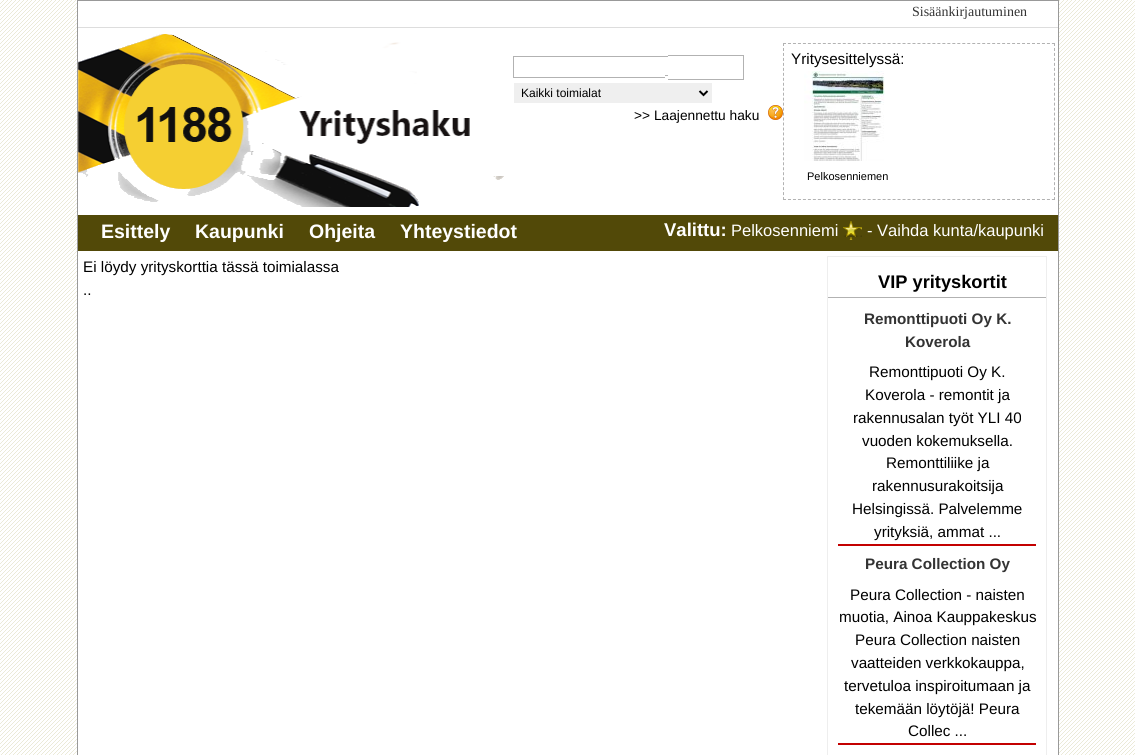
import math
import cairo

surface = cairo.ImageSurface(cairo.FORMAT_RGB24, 1135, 755)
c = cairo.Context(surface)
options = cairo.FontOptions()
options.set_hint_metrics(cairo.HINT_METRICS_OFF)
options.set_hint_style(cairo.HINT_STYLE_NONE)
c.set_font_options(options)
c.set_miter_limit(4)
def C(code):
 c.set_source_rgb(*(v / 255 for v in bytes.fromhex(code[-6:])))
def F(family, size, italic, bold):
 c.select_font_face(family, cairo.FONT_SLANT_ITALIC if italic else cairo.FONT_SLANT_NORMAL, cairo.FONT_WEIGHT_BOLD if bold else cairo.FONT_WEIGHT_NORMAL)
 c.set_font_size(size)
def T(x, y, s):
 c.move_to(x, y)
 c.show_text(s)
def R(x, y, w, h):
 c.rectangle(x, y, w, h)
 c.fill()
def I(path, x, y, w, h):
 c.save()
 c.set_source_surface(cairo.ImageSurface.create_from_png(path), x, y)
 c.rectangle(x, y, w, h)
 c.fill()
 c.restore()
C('ffffff')
c.paint()
I('1.png',0,0,1135,755)
C('ffffff')
c.rectangle(77.5,.5,981,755)
c.fill_preserve()
C('999999')
c.set_line_width(1)
c.stroke()
C('dddddd')
R(78,27,980,1)
F('Liberation Serif',14,0,0)
C('333333')
T(912,16,'Sisäänkirjautuminen')
I('2.png',78,34,426,173)
C('b2b2b2')
R(668,55,76,1)
R(513,56,155,1)
R(743,55,1,25)
R(513,77,152,1)
R(513,56,1,22)
R(665,75,3,1)
R(668,79,76,1)
C('efefef')
R(514,83,198,20)
c.new_path()
c.move_to(699.5,91)
c.line_to(703.5,95)
c.line_to(707.5,91)
C('000000')
c.set_line_width(2)
c.stroke()
F('Liberation Sans',12,0,0)
T(521,97,'Kaikki toimialat')
F('Liberation Sans',13.75,0,0)
T(634,120,'>> Laajennettu haku')
I('3.png',768,105,15,15)
c.new_path()
c.move_to(783,43.5)
c.line_to(1055,43.5)
C('b2b2b2')
c.set_line_width(1)
c.set_dash([3,1.98])
c.stroke()
c.new_path()
c.move_to(1054.5,43)
c.line_to(1054.5,200)
c.set_dash([3,1.97])
c.stroke()
c.new_path()
c.move_to(783,199.5)
c.line_to(1055,199.5)
c.set_dash([3,1.98])
c.stroke()
c.new_path()
c.move_to(783.5,43)
c.line_to(783.5,200)
c.set_dash([3,1.97])
c.stroke()
F('Liberation Sans',15.25,0,0)
C('000000')
T(791,64,'Yritysesittelyssä:')
I('4.png',804,71,81,90)
F('Liberation Sans',11,0,0)
T(807,180,'Pelkosenniemen')
C('524908')
R(78,215,980,36)
F('Liberation Sans',19.5,0,1)
C('ffffff')
T(101,238,'Esittely')
T(195,238,'Kaupunki')
T(309,238,'Ohjeita')
T(400,238,'Yhteystiedot')
F('Liberation Sans',18.5,0,1)
T(664,236,'Valittu:')
F('Liberation Sans',16.5,0,0)
T(731,236,'Pelkosenniemi')
I('5.png',843,221,19,19)
T(867,236,'- Vaihda kunta/kaupunki')
F('Liberation Sans',15.25,0,0)
C('000000')
T(83,272,'Ei löydy yrityskorttia tässä toimialassa')
T(83,295,'..')
c.rectangle(827.5,256.5,219,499)
C('eeeeee')
c.set_dash([])
c.stroke()
C('b2b2b2')
R(828,297,218,1)
F('Liberation Sans',18.25,0,1)
C('000000')
T(878,288,'VIP yrityskortit')
F('Liberation Sans',15.25,0,1)
C('333333')
T(864,324,'Remonttipuoti Oy K.')
T(905,347,'Koverola')
F('Liberation Sans',15.25,0,0)
C('000000')
T(869,377,'Remonttipuoti Oy K.')
T(865,400,'Koverola - remontit ja')
T(853,423,'rakennusalan työt YLI 40')
T(862,446,'vuoden kokemuksella.')
T(886,468,'Remonttiliike ja')
T(872,491,'rakennusurakoitsija')
T(852,514,'Helsingissä. Palvelemme')
T(874,537,'yrityksiä, ammat ...')
C('c30000')
R(838,544,198,2)
F('Liberation Sans',15.25,0,1)
C('333333')
T(865,569,'Peura Collection Oy')
F('Liberation Sans',15.25,0,0)
C('000000')
T(850,600,'Peura Collection - naisten')
T(839,622,'muotia, Ainoa Kauppakeskus')
T(855,645,'Peura Collection naisten')
T(851,668,'vaatteiden verkkokauppa,')
T(844,691,'tervetuloa inspiroitumaan ja')
T(855,714,'tekemään löytöjä! Peura')
T(908,736,'Collec ...')
C('c30000')
R(838,743,198,2)
surface.write_to_png('o.png')
